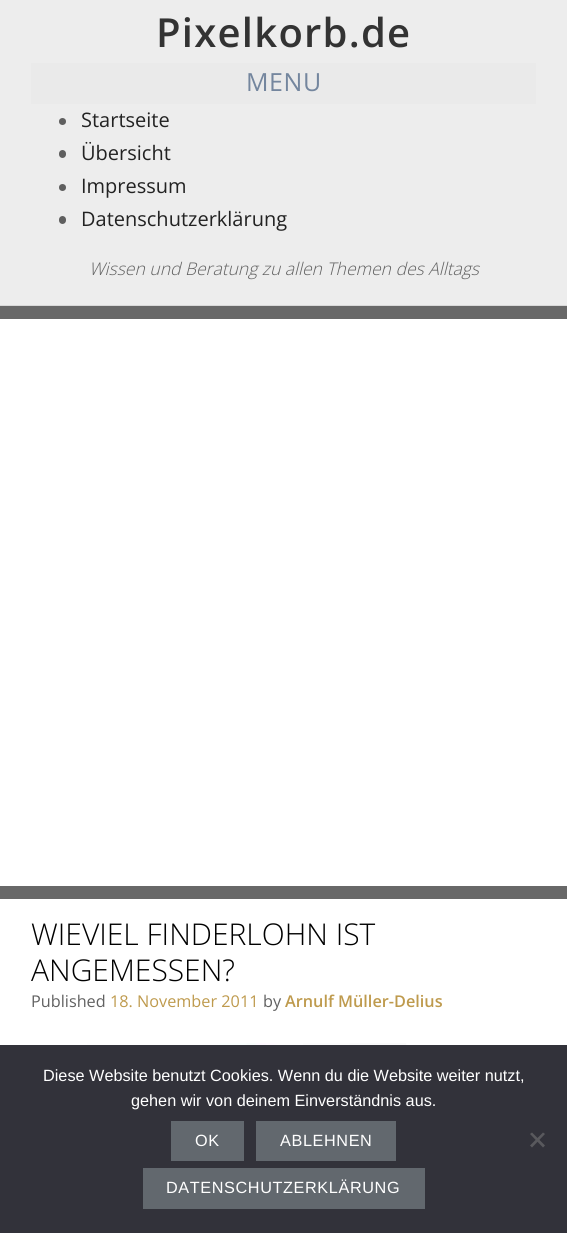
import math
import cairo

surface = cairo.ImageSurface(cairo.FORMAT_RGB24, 567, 1233)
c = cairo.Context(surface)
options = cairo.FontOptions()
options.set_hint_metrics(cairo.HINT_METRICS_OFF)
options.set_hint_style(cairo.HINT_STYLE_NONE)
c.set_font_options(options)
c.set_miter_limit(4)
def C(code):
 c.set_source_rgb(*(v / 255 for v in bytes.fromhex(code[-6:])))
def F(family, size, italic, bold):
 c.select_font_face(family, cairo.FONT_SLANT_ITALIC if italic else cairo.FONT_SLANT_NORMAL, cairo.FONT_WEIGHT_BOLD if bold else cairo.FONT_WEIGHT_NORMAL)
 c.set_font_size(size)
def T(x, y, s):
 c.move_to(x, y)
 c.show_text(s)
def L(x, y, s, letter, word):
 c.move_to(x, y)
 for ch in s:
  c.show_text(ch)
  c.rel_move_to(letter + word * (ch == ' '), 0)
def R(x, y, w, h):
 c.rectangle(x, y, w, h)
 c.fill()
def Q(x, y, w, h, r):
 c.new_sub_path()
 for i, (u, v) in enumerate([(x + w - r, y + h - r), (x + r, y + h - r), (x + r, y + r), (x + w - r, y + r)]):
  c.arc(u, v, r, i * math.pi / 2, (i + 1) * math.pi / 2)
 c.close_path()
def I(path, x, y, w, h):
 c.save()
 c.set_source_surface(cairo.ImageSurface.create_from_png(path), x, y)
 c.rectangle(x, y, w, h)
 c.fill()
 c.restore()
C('686868')
c.paint()
C('ededed')
R(0,0,567,305)
C('d9d9d9')
R(0,305,567,1)
F('Open Sans SemiBold',40,0,0)
C('333333')
L(156,47,'Pixelkorb.de',1.25,0)
C('eaeaea')
R(31,63,505,41)
F('Open Sans',25,0,0)
C('74869e')
L(246,91,'MENU',.6,0)
C('5f5f5f')
c.new_path()
c.arc(62.5,121.5,3.5,0,2 * math.pi)
c.fill()
F('Open Sans',20,0,0)
C('222222')
T(81,127,'Startseite')
C('5f5f5f')
Q(59,150,7,8,3.5)
c.fill()
C('222222')
T(81,160,'Übersicht')
C('5f5f5f')
c.new_path()
c.arc(62.5,187.5,3.5,0,2 * math.pi)
c.fill()
C('222222')
T(81,193,'Impressum')
C('5f5f5f')
Q(59,216,7,8,3.5)
c.fill()
C('222222')
T(81,226,'Datenschutzerklärung')
F('Open Sans Light',17.5,1,0)
C('616161')
T(89,275,'Wissen und Beratung zu allen Themen des Alltags')
C('ffffff')
R(0,319,567,567)
R(0,899,567,146)
F('Open Sans Light',30,0,0)
C('000000')
T(31,945,'WIEVIEL FINDERLOHN IST')
T(31,981,'ANGEMESSEN?')
F('Open Sans',16.25,0,0)
C('616161')
T(31,1007,'Published')
C('be9a4d')
T(110,1007,'18. November 2011')
C('616161')
T(263,1007,'by')
F('Open Sans SemiBold',16.25,0,0)
C('be9a4d')
T(285,1007,'Arnulf Müller-Delius')
I('1.png',87,1043,320,2)
C('32323a')
R(0,1045,567,188)
F('Liberation Sans',16.25,0,0)
C('ffffff')
T(43,1081,'Diese Website benutzt Cookies. Wenn du die Website weiter nutzt,')
T(131,1106,'gehen wir von deinem Einverständnis aus.')
C('62686e')
R(171,1121,73,40)
C('ffffff')
L(195,1146,'OK',.6,0)
C('62686e')
R(256,1121,140,40)
C('ffffff')
L(280,1146,'ABLEHNEN',.6,0)
C('62686e')
R(143,1168,282,41)
C('ffffff')
L(166,1193,'DATENSCHUTZERKLÄRUNG',.6,0)
C('59595d')
c.new_path()
c.move_to(543,1132.5)
c.line_to(545,1134)
c.line_to(532,1147.5)
c.line_to(530,1145.5)
c.close_path()
c.fill()
c.new_path()
c.move_to(530,1134)
c.line_to(532,1132.5)
c.line_to(545,1145.5)
c.line_to(543,1147.5)
c.close_path()
c.fill()
surface.write_to_png('o.png')
